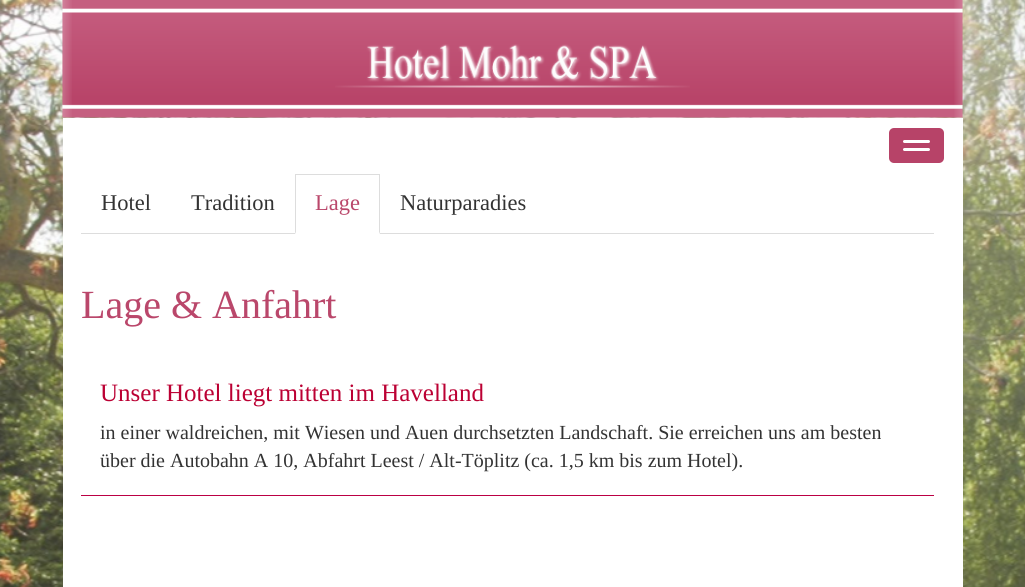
import math
import cairo

surface = cairo.ImageSurface(cairo.FORMAT_RGB24, 1025, 587)
c = cairo.Context(surface)
options = cairo.FontOptions()
options.set_hint_metrics(cairo.HINT_METRICS_OFF)
options.set_hint_style(cairo.HINT_STYLE_NONE)
c.set_font_options(options)
c.set_miter_limit(4)
def C(code):
 c.set_source_rgb(*(v / 255 for v in bytes.fromhex(code[-6:])))
def F(family, size, italic, bold):
 c.select_font_face(family, cairo.FONT_SLANT_ITALIC if italic else cairo.FONT_SLANT_NORMAL, cairo.FONT_WEIGHT_BOLD if bold else cairo.FONT_WEIGHT_NORMAL)
 c.set_font_size(size)
def T(x, y, s):
 c.move_to(x, y)
 c.show_text(s)
def R(x, y, w, h):
 c.rectangle(x, y, w, h)
 c.fill()
def Q(x, y, w, h, r):
 c.new_sub_path()
 for i, (u, v) in enumerate([(x + w - r, y + h - r), (x + r, y + h - r), (x + r, y + r), (x + w - r, y + r)]):
  c.arc(u, v, r, i * math.pi / 2, (i + 1) * math.pi / 2)
 c.close_path()
def I(path, x, y, w, h):
 c.save()
 c.set_source_surface(cairo.ImageSurface.create_from_png(path), x, y)
 c.rectangle(x, y, w, h)
 c.fill()
 c.restore()
C('ffffff')
c.paint()
I('1.png',0,0,1025,587)
I('2.png',62,0,901,118)
I('3.png',62,0,10,215)
I('4.png',335,44,355,44)
I('5.png',954,0,9,118)
C('ffffff')
R(63,118,900,469)
C('b74368')
Q(889,128,55,35,5)
c.fill()
C('ffffff')
Q(903,140,27,3,1.5)
c.fill()
Q(903,148,27,3,1.5)
c.fill()
C('dddddd')
R(81,233,853,1)
F('Liberation Serif',22.5,0,0)
C('333333')
T(101,210,'Hotel')
T(191,210,'Tradition')
C('ffffff')
R(295,233,85,1)
C('dddddd')
R(295,174,85,1)
c.new_path()
c.move_to(380,174)
c.line_to(380,234)
c.line_to(379,232)
c.line_to(379,175)
c.close_path()
c.fill()
c.new_path()
c.move_to(295,234)
c.line_to(295,174)
c.line_to(296,175)
c.line_to(296,232)
c.close_path()
c.fill()
C('ba476b')
T(315,210,'Lage')
C('333333')
T(400,210,'Naturparadies')
F('Liberation Serif',40,0,0)
C('ba476b')
T(81,318,'Lage & Anfahrt')
F('Liberation Serif',25,0,0)
C('bb0033')
T(100,401,'Unser Hotel liegt mitten im Havelland')
F('Liberation Serif',20,0,0)
C('333333')
T(100,439,'in einer waldreichen, mit Wiesen und Auen durchsetzten Landschaft. Sie erreichen uns am besten')
T(100,467,'über die Autobahn A 10, Abfahrt Leest / Alt-Töplitz (ca. 1,5 km bis zum Hotel).')
C('bb0044')
R(81,495,853,1)
surface.write_to_png('o.png')
